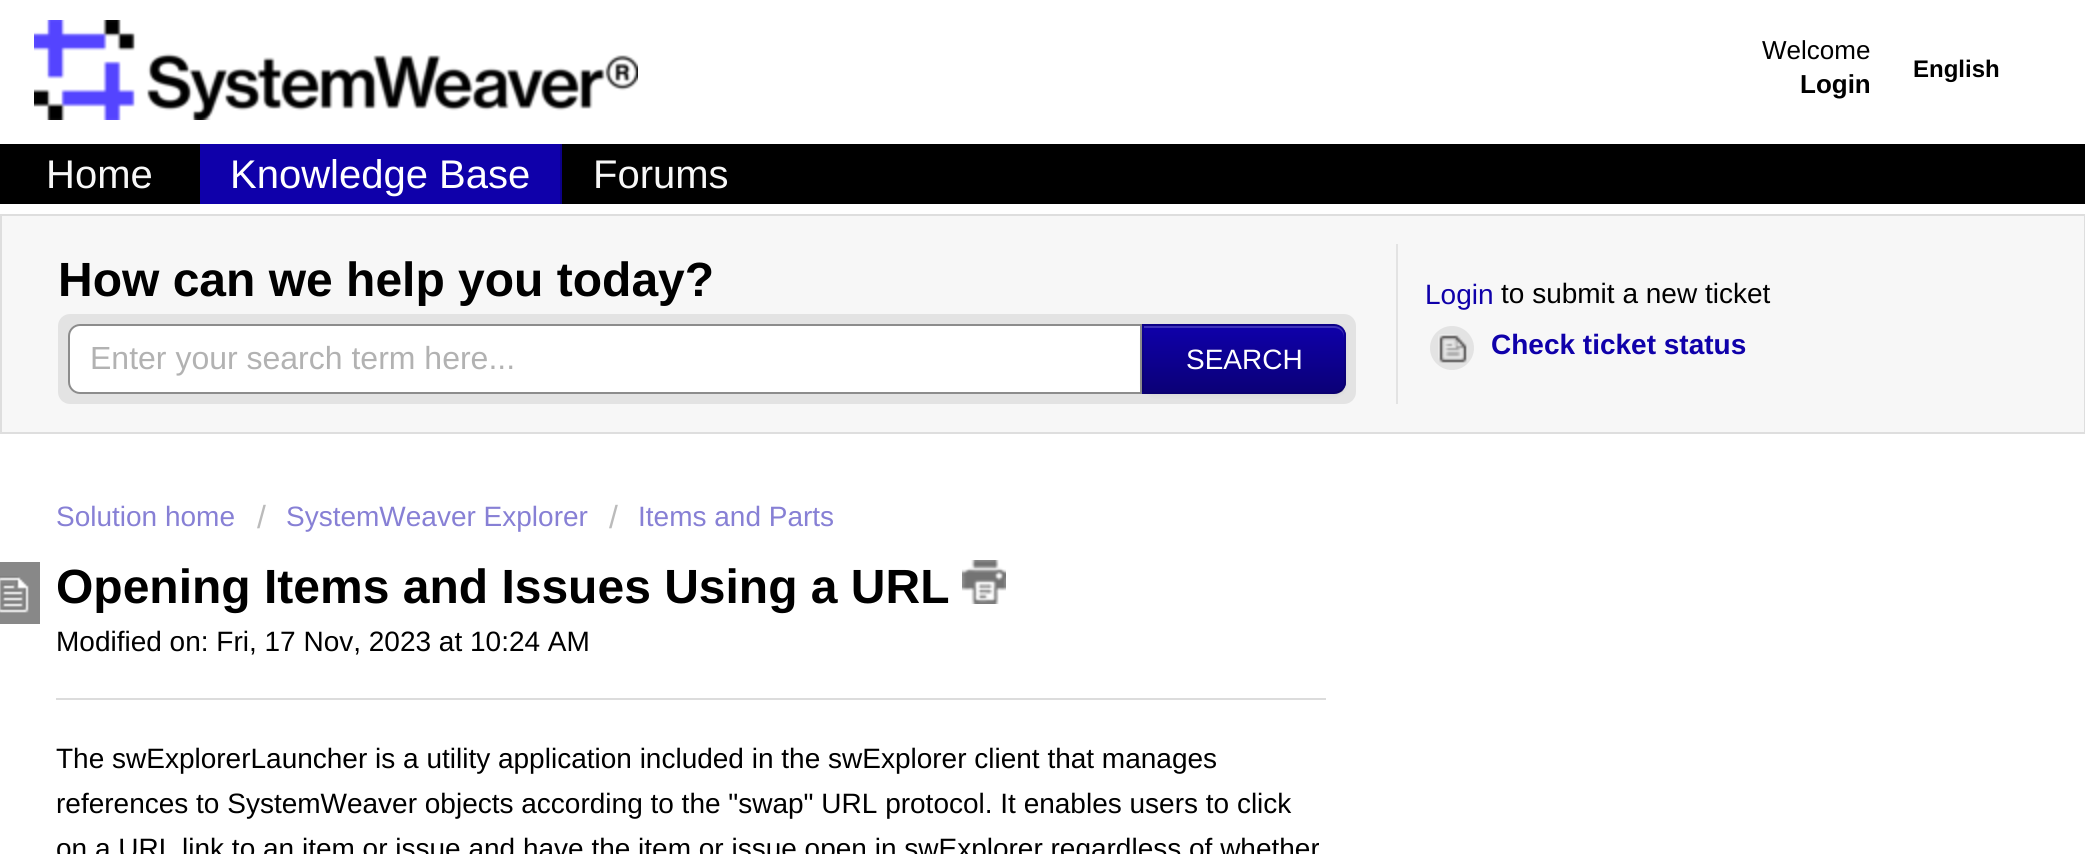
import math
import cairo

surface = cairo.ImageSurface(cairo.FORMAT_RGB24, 2085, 854)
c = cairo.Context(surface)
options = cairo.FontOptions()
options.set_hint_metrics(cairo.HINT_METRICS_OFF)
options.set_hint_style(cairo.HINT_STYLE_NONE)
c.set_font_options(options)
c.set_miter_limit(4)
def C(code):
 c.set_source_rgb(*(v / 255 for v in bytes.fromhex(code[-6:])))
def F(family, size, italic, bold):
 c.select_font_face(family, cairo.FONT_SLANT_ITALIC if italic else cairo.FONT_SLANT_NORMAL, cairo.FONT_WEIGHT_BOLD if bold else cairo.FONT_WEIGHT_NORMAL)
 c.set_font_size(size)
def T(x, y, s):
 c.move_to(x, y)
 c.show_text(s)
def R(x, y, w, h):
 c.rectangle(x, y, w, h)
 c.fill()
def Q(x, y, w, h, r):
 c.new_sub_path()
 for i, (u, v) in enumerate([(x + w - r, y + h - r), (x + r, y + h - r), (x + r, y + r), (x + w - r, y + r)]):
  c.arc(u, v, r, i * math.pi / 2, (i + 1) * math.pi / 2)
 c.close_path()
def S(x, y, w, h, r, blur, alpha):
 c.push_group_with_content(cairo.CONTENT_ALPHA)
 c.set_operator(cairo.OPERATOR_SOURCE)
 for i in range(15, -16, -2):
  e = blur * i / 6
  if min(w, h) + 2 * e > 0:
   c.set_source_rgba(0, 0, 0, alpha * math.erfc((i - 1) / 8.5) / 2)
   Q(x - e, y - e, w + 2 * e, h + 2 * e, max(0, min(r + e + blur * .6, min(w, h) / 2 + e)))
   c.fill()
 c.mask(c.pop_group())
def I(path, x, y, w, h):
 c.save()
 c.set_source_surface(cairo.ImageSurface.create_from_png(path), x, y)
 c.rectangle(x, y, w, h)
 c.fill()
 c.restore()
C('ffffff')
c.paint()
I('1.png',34,20,604,100)
F('Liberation Sans',26,0,0)
C('000000')
T(1762,59,'Welcome')
F('Liberation Sans',24,0,1)
T(1913,77,'English')
F('Liberation Sans',26,0,1)
T(1800,93,'Login')
R(0,144,2085,60)
F('Liberation Sans',40,0,0)
C('f7f7f7')
T(46,188,'Home')
C('0f00aa')
R(200,144,360,60)
C('0c0088')
R(560,144,2,60)
C('ffffff')
T(230,188,'Knowledge Base')
C('f7f7f7')
T(593,188,'Forums')
c.rectangle(1,215,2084,218)
c.fill_preserve()
C('dedede')
c.stroke()
C('e3e3e3')
R(1396,244,2,160)
F('Liberation Sans',48,0,1)
C('000000')
T(58,296,'How can we help you today?')
C('e3e3e3')
Q(58,314,1298,90,12)
c.fill()
C('ffffff')
c.new_path()
c.move_to(80,325)
c.line_to(1141,325)
c.line_to(1141,393)
c.line_to(80,393)
c.curve_to(74,393,69,388,69,382)
c.line_to(69,336)
c.curve_to(69,330,74,325,80,325)
c.close_path()
c.fill_preserve()
C('8c8c8c')
c.stroke()
F('Liberation Sans',32,0,0)
C('b2b2b2')
T(90,369,'Enter your search term here...')
C('000000')
S(1142,326,204,70,12,2,.05)
C('0d0096')
c.new_path()
c.move_to(1142,324)
c.line_to(1334,324)
c.curve_to(1340.5,324,1346,329.5,1346,336)
c.line_to(1346,382)
c.curve_to(1346,388.5,1340.5,394,1334,394)
c.line_to(1142,394)
c.close_path()
c.fill()
c.save()
c.new_path()
c.move_to(1142,324)
c.line_to(1334,324)
c.curve_to(1340.5,324,1346,329.5,1346,336)
c.line_to(1346,382)
c.curve_to(1346,388.5,1340.5,394,1334,394)
c.line_to(1142,394)
c.close_path()
c.clip()
gradient = cairo.LinearGradient(1244,326,1244,392)
gradient.add_color_stop_rgba(0,0.059,0,0.667,1)
gradient.add_color_stop_rgba(1,0.043,0,0.467,1)
c.set_source(gradient)
R(1142,326,204,66)
c.restore()
c.set_source_rgba(1,1,1,0.2)
c.new_path()
c.move_to(1144,328)
c.line_to(1334,328)
c.curve_to(1340,328,1344,332,1344,338)
c.line_to(1344,336)
c.curve_to(1344,330,1340,326,1334,326)
c.line_to(1144,326)
c.close_path()
c.fill()
c.set_source_rgba(0,0,0,0.1)
c.new_path()
c.move_to(1142,324)
c.line_to(1144,326)
c.line_to(1334,326)
c.curve_to(1337,326,1340,327,1341,329)
c.line_to(1343,327)
c.curve_to(1340,325,1338,324,1334,324)
c.close_path()
c.fill()
c.new_path()
c.move_to(1346,382)
c.line_to(1346,336)
c.curve_to(1346,332,1345,330,1343,327)
c.line_to(1341,329)
c.curve_to(1343,330,1344,333,1344,336)
c.line_to(1344,382)
c.curve_to(1344,385,1343,388,1341,389)
c.line_to(1343,391)
c.curve_to(1345,388,1346,386,1346,382)
c.close_path()
c.fill()
c.set_source_rgba(0,0,0,0.25)
c.new_path()
c.move_to(1334,394)
c.curve_to(1338,394,1340,393,1343,391)
c.line_to(1341,389)
c.curve_to(1340,391,1337,392,1334,392)
c.line_to(1144,392)
c.line_to(1142,394)
c.close_path()
c.fill()
c.set_source_rgba(0,0,0,0.1)
c.new_path()
c.move_to(1142,324)
c.line_to(1142,394)
c.line_to(1144,392)
c.line_to(1144,326)
c.close_path()
c.fill()
F('Liberation Sans',28,0,0)
C('ffffff')
T(1186,369,'SEARCH')
C('0f00aa')
T(1425,304,'Login')
C('000000')
T(1501,303,'to submit a new ticket')
C('e3e3e3')
c.new_path()
c.arc(1452,348,22,0,2 * math.pi)
c.fill()
I('2.png',1438,334,29,29)
F('Liberation Sans',28,0,1)
C('0f00aa')
T(1491,354,'Check ticket status')
F('Liberation Sans',28,0,0)
C('8780d5')
T(56,526,'Solution home')
F('Liberation Sans',32,0,0)
C('bbbbbb')
T(257,528,'/')
F('Liberation Sans',28,0,0)
C('8780d5')
T(286,526,'SystemWeaver Explorer')
F('Liberation Sans',32,0,0)
C('bbbbbb')
T(609,528,'/')
F('Liberation Sans',28,0,0)
C('8780d5')
T(638,526,'Items and Parts')
C('888888')
R(0,562,40,62)
I('3.png',0,576,29,37)
F('Liberation Sans',48,0,1)
C('000000')
T(56,603,'Opening Items and Issues Using a URL')
I('4.png',962,560,44,44)
F('Liberation Sans',28,0,0)
T(56,651,'Modified on: Fri, 17 Nov, 2023 at 10:24 AM')
C('dcdcdc')
R(56,698,1270,2)
C('000000')
T(56,768,'The swExplorerLauncher is a utility application included in the swExplorer client that manages')
T(56,813,'references to SystemWeaver objects according to the "swap" URL protocol. It enables users to click')
T(56,858,'on a URL link to an item or issue and have the item or issue open in swExplorer regardless of whether')
surface.write_to_png('o.png')
